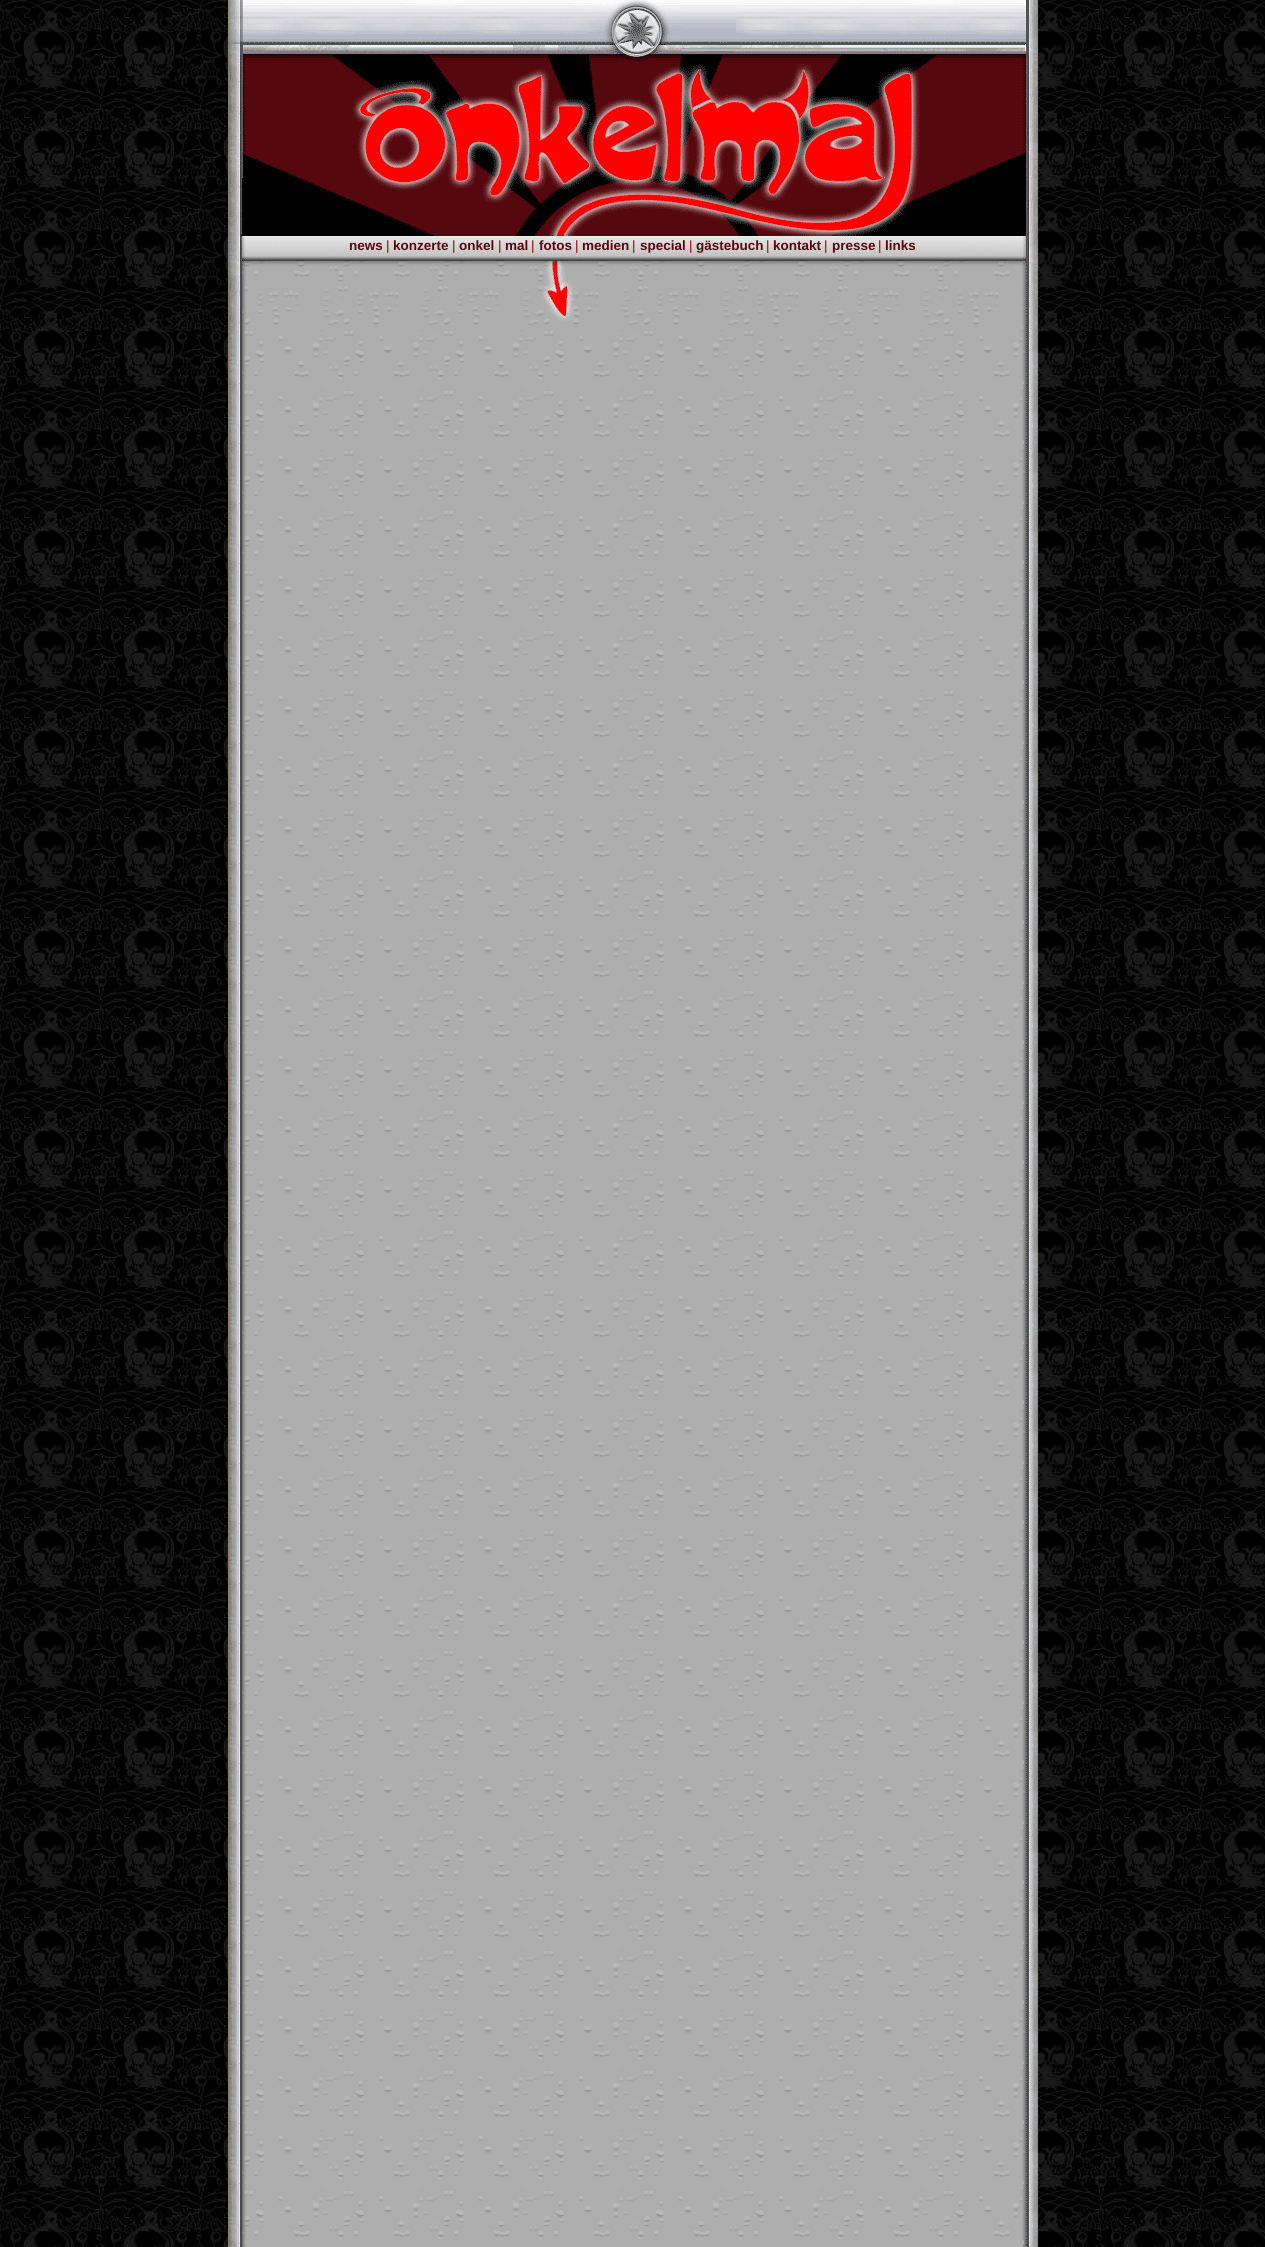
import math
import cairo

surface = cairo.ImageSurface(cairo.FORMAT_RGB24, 1265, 2247)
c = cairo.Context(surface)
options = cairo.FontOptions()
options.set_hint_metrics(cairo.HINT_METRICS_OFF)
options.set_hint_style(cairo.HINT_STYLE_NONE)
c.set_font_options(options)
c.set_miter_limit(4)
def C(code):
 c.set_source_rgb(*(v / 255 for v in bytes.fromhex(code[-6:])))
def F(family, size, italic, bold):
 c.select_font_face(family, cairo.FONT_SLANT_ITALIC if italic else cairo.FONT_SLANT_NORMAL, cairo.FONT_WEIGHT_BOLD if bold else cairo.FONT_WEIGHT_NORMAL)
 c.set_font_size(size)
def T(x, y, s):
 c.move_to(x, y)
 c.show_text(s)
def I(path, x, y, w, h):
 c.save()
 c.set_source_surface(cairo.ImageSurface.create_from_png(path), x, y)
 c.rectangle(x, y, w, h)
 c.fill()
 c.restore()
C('ffffff')
c.paint()
I('1.png',0,0,1265,2247)
I('2.png',228,0,810,55)
I('3.png',228,55,810,180)
I('4.png',228,235,810,30)
F('Liberation Sans',13.5,0,1)
C('55080e')
T(349,250,'news')
F('Liberation Sans',13.5,0,0)
C('990000')
T(386,250,'|')
F('Liberation Sans',13.5,0,1)
C('55080e')
T(393,250,'konzerte')
F('Liberation Sans',13.5,0,0)
C('990000')
T(452,250,'|')
F('Liberation Sans',13.5,0,1)
C('55080e')
T(459,250,'onkel')
F('Liberation Sans',13.5,0,0)
C('990000')
T(498,250,'|')
F('Liberation Sans',13.5,0,1)
C('55080e')
T(505,250,'mal')
F('Liberation Sans',13.5,0,0)
C('990000')
T(531,250,'|')
F('Liberation Sans',13.5,0,1)
C('55080e')
T(539,250,'fotos')
F('Liberation Sans',13.5,0,0)
C('990000')
T(575,250,'|')
F('Liberation Sans',13.5,0,1)
C('55080e')
T(582,250,'medien')
F('Liberation Sans',13.5,0,0)
C('990000')
T(632,250,'|')
F('Liberation Sans',13.5,0,1)
C('55080e')
T(640,250,'special')
F('Liberation Sans',13.5,0,0)
C('990000')
T(689,250,'|')
F('Liberation Sans',13.5,0,1)
C('55080e')
T(696,250,'gästebuch')
F('Liberation Sans',13.5,0,0)
C('990000')
T(766,250,'|')
F('Liberation Sans',13.5,0,1)
C('55080e')
T(773,250,'kontakt')
F('Liberation Sans',13.5,0,0)
C('990000')
T(824,250,'|')
F('Liberation Sans',13.5,0,1)
C('55080e')
T(832,250,'presse')
F('Liberation Sans',13.5,0,0)
C('990000')
T(878,250,'|')
F('Liberation Sans',13.5,0,1)
C('55080e')
T(885,250,'links')
I('5.png',228,265,810,60)
I('6.png',228,325,810,1922)
surface.write_to_png('o.png')
